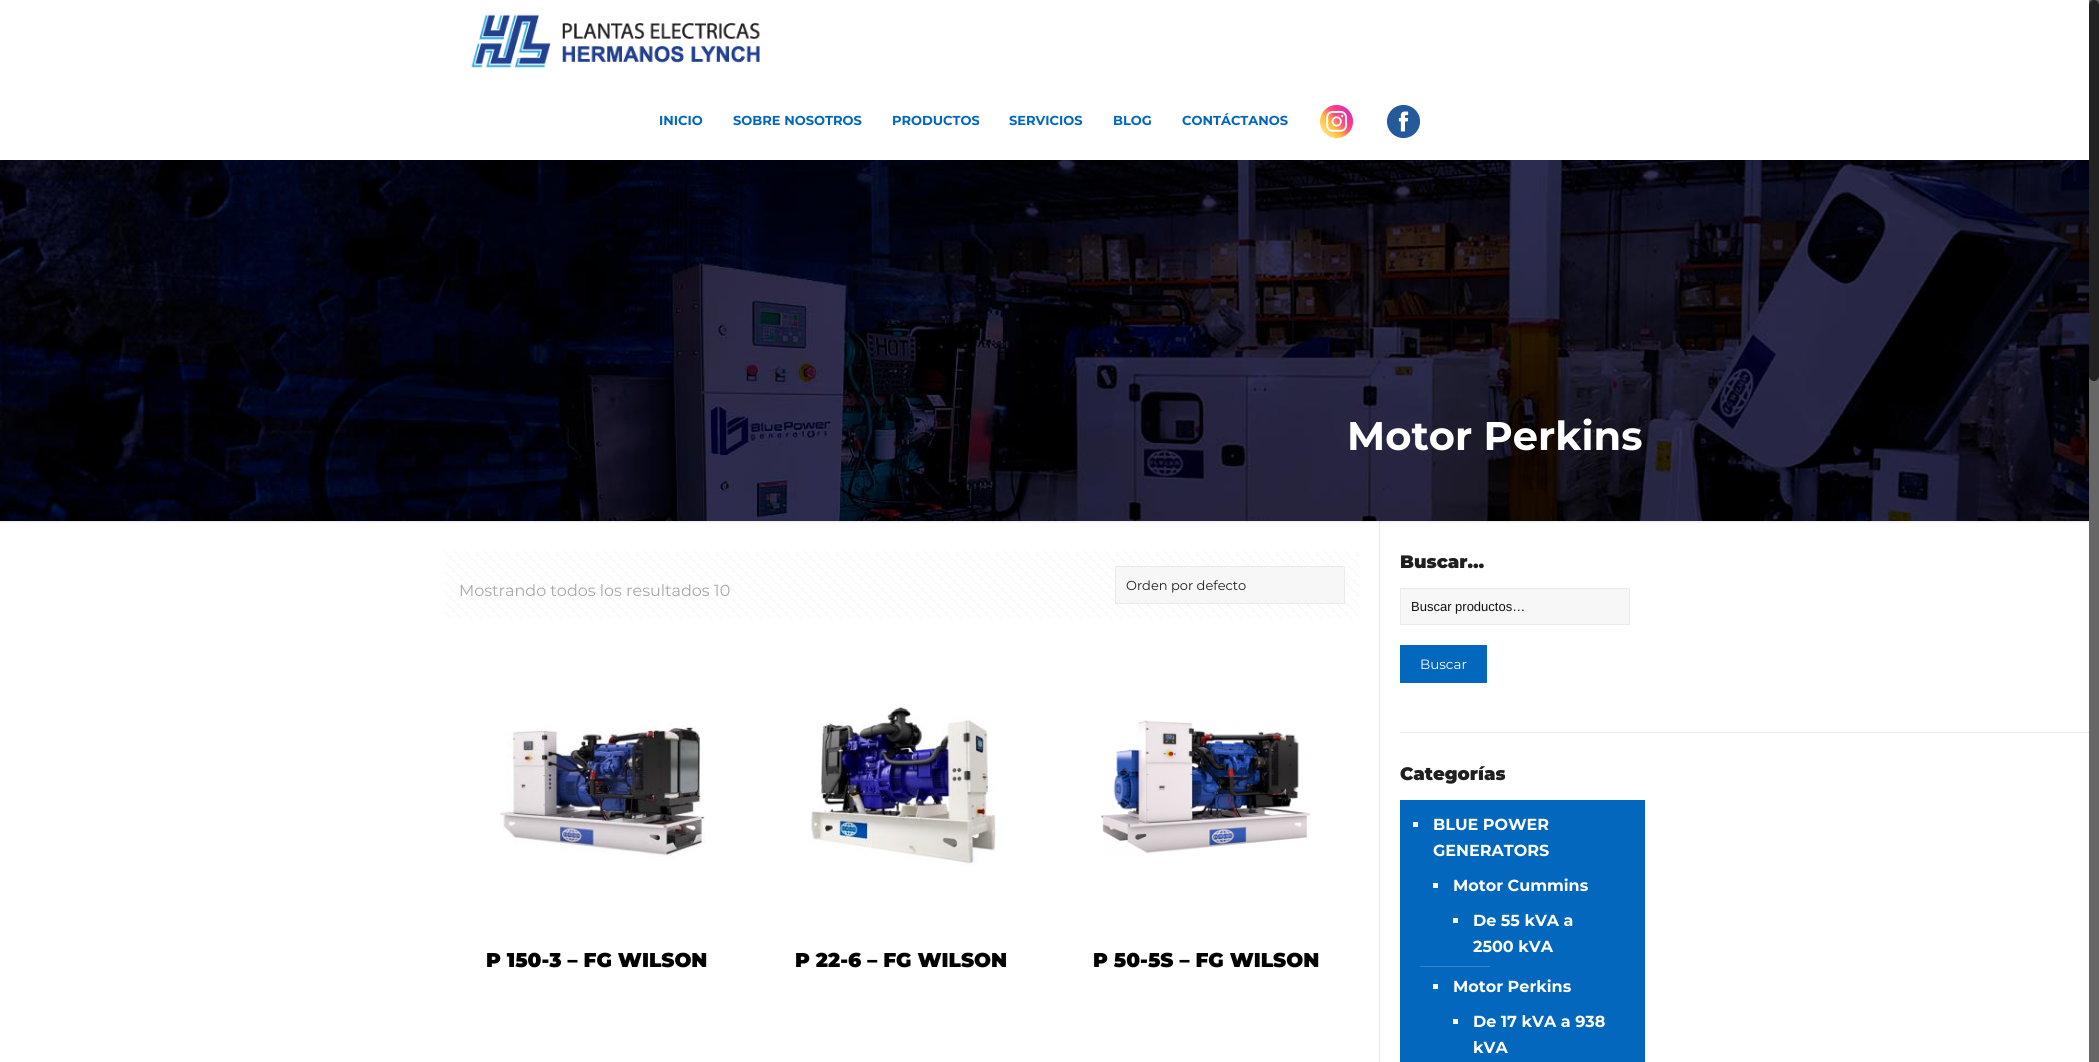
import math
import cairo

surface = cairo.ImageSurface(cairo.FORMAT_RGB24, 2099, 1062)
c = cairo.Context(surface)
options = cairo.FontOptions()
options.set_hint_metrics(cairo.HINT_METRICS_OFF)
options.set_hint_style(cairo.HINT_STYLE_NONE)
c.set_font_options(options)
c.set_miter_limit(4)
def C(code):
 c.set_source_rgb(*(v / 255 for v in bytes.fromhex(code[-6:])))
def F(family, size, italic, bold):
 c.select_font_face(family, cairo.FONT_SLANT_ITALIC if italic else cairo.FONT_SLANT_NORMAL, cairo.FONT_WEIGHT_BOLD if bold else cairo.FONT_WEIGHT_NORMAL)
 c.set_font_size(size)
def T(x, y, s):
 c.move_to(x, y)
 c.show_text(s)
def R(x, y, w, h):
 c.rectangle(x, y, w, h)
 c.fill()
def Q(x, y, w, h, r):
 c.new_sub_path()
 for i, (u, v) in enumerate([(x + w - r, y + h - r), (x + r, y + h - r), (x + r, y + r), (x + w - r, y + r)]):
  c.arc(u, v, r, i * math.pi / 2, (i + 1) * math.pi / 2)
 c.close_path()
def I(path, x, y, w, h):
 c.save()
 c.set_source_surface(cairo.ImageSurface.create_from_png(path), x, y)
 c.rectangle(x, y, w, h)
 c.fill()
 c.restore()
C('ffffff')
c.paint()
I('1.png',0,160,2089,361)
I('2.png',471,14,289,54)
F('Montserrat',13,0,1)
C('0367bd')
T(659,125,'INICIO')
T(733,125,'SOBRE NOSOTROS')
T(892,125,'PRODUCTOS')
T(1009,125,'SERVICIOS')
T(1113,125,'BLOG')
T(1182,125,'CONTÁCTANOS')
I('3.png',1320,105,33,33)
I('4.png',1387,105,33,33)
F('Montserrat',40,0,1)
C('ffffff')
T(1347,450,'Motor Perkins')
C('ebebeb')
R(1379,521,1,541)
I('5.png',0,521,2089,2)
I('6.png',444,551,916,68)
F('Montserrat',16,0,0)
C('a8a8a8')
T(459,596,'Mostrando todos los resultados 10')
C('f7f7f7')
c.rectangle(1115.5,566.5,229,37)
c.fill_preserve()
C('ebebeb')
c.set_line_width(1)
c.stroke()
F('Montserrat',13,0,0)
C('1f1f1f')
T(1126,590,'Orden por defecto')
I('7.png',499,723,207,138)
F('Montserrat Black',20,0,0)
C('000000')
T(486,967,'P 150-3 – FG WILSON')
I('8.png',809,703,188,163)
T(795,967,'P 22-6 – FG WILSON')
I('9.png',1101,720,210,134)
T(1093,967,'P 50-5S – FG WILSON')
F('Montserrat Black',18,0,0)
C('1f1f1f')
T(1400,568,'Buscar…')
C('f7f7f7')
c.rectangle(1400.5,588.5,229,36)
c.fill_preserve()
C('ebebeb')
c.stroke()
F('Liberation Sans',13,0,0)
C('111111')
T(1411,611,'Buscar productos…')
C('0367bd')
R(1400,645,87,38)
F('Montserrat',13.5,0,0)
C('ffffff')
T(1420,669,'Buscar')
C('e9e9e9')
R(1400,732,689,1)
F('Montserrat Black',18,0,0)
C('1f1f1f')
T(1400,780,'Categorías')
C('0367bd')
R(1400,800,245,262)
C('ffffff')
R(1413,822,5,5)
F('Montserrat',16,0,1)
T(1433,830,'BLUE POWER')
T(1433,856,'GENERATORS')
R(1433,883,5,5)
T(1453,891,'Motor Cummins')
R(1453,918,5,5)
T(1473,926,'De 55 kVA a')
T(1473,952,'2500 kVA')
C('3585ca')
R(1420,966,70,1)
C('ffffff')
R(1433,984,5,5)
T(1453,992,'Motor Perkins')
R(1453,1019,5,5)
T(1473,1027,'De 17 kVA a 938')
T(1473,1053,'kVA')
C('666666')
R(2089,0,10,1062)
C('222222')
Q(2089,0,10,381,5)
c.fill()
surface.write_to_png('o.png')
